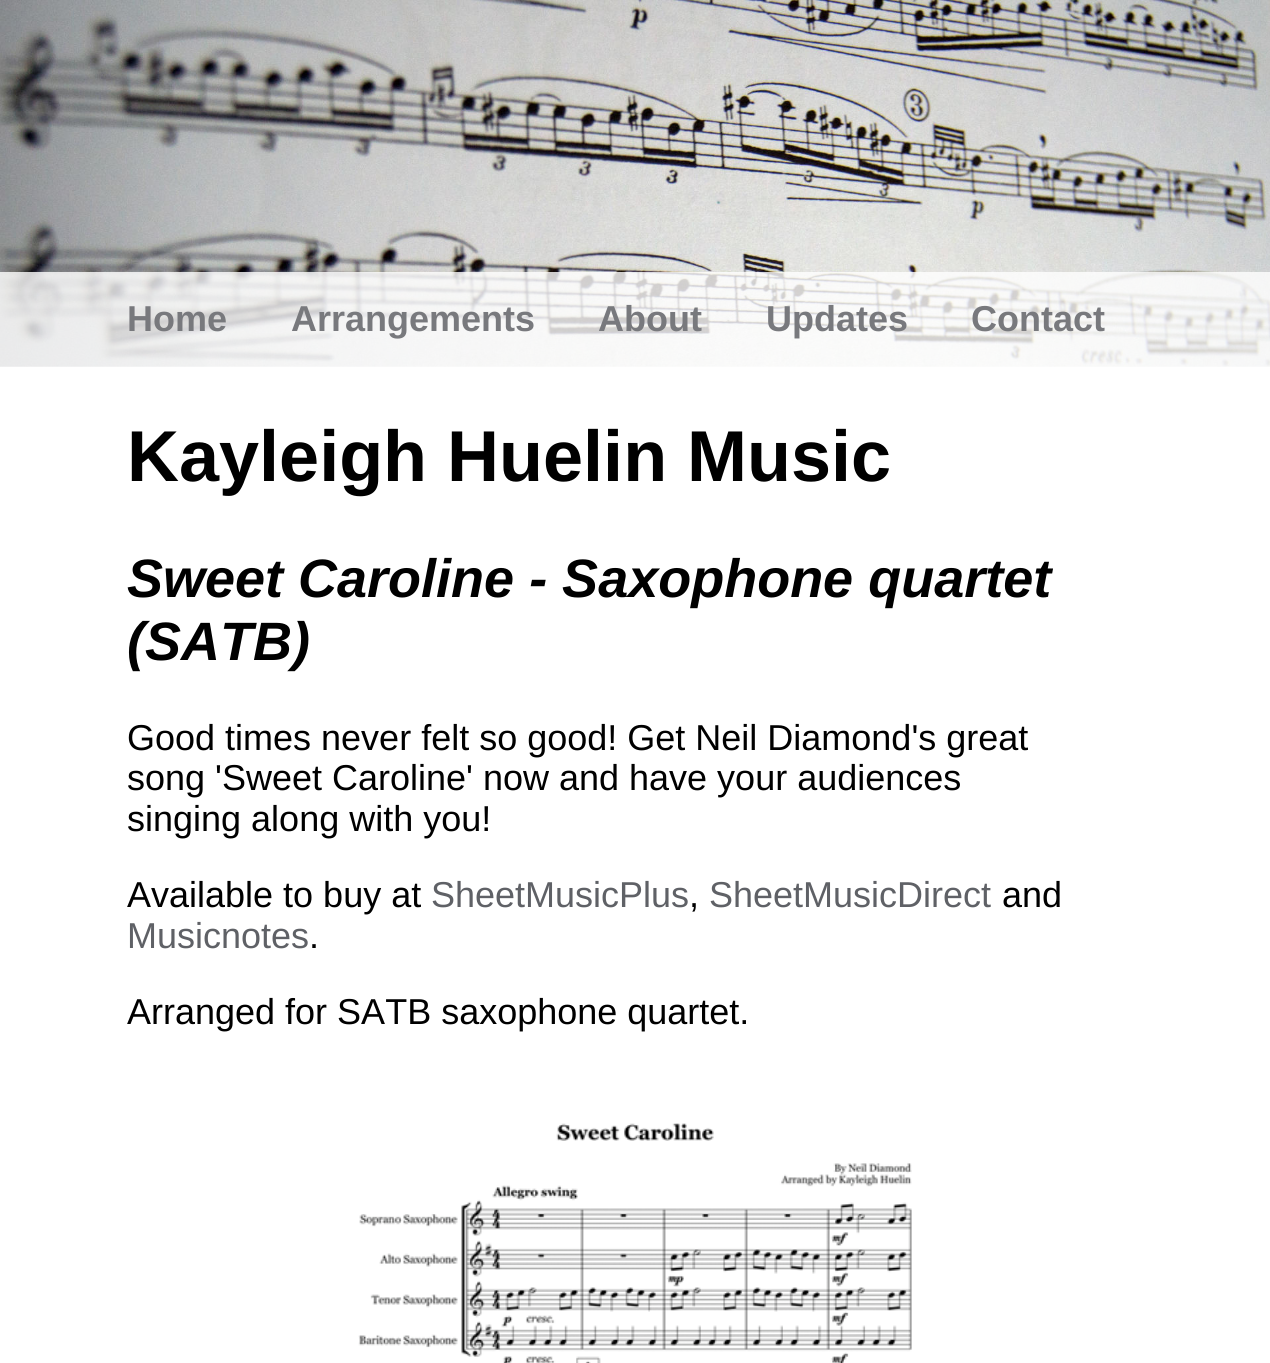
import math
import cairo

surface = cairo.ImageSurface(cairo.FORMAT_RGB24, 1270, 1363)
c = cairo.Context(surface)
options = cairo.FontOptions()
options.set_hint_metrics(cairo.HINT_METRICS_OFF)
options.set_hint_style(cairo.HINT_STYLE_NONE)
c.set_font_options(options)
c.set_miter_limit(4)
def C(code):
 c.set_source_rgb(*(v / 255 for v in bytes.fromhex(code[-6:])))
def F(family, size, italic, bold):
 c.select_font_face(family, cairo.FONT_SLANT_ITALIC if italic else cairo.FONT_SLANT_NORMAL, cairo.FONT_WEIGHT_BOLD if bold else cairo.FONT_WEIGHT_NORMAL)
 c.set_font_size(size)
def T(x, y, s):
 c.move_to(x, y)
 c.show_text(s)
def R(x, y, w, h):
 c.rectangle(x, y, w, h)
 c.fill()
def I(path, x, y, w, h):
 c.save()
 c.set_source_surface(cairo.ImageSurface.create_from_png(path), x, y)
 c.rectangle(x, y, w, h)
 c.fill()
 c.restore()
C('ffffff')
c.paint()
I('1.png',0,0,1270,367)
c.set_source_rgba(1,1,1,0.8)
R(0,272,1270,95)
F('Liberation Sans',36,0,1)
C('78797d')
T(127,331,'Home')
T(291,331,'Arrangements')
T(598,331,'About')
T(766,331,'Updates')
T(971,331,'Contact')
F('Liberation Sans',72,0,1)
C('000000')
T(127,481,'Kayleigh Huelin Music')
F('Liberation Sans',54,1,1)
T(127,597,'Sweet Caroline - Saxophone quartet')
T(127,660,'(SATB)')
F('Liberation Sans',36,0,0)
T(127,750,'Good times never felt so good! Get Neil Diamond\'s great')
T(127,790,'song \'Sweet Caroline\' now and have your audiences')
T(127,831,'singing along with you!')
T(127,907,'Available to buy at')
C('5f6166')
T(431,907,'SheetMusicPlus')
C('000000')
T(689,907,',')
C('5f6166')
T(709,907,'SheetMusicDirect')
C('000000')
T(1002,907,'and')
C('5f6166')
T(127,948,'Musicnotes')
C('000000')
T(309,948,'.')
T(127,1024,'Arranged for SATB saxophone quartet.')
I('2.png',358,1123,554,240)
surface.write_to_png('o.png')
